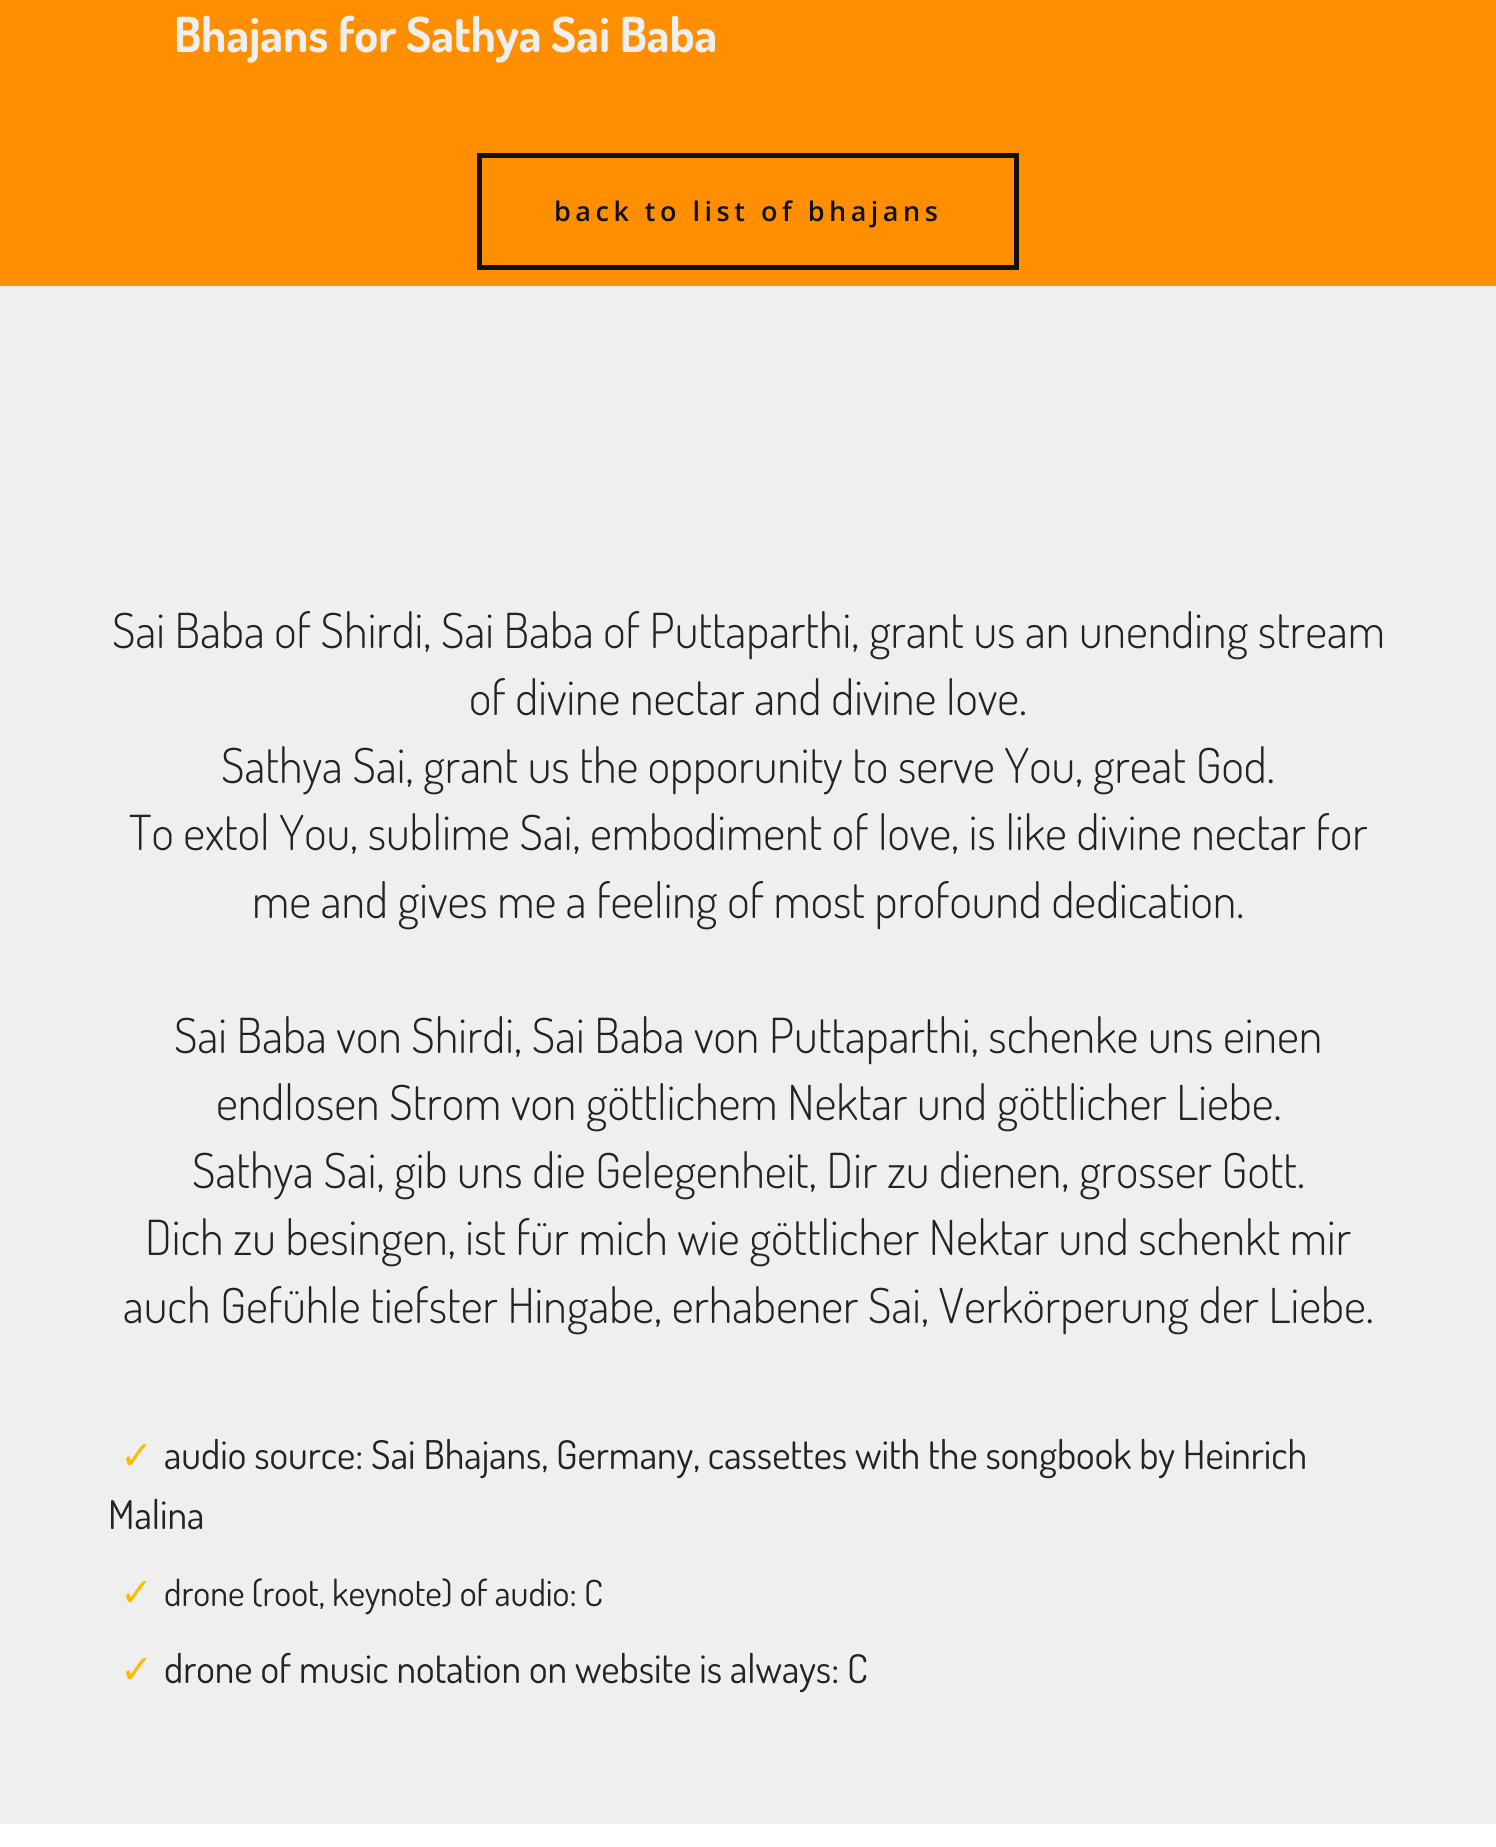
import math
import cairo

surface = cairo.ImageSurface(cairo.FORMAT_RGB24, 1496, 1847)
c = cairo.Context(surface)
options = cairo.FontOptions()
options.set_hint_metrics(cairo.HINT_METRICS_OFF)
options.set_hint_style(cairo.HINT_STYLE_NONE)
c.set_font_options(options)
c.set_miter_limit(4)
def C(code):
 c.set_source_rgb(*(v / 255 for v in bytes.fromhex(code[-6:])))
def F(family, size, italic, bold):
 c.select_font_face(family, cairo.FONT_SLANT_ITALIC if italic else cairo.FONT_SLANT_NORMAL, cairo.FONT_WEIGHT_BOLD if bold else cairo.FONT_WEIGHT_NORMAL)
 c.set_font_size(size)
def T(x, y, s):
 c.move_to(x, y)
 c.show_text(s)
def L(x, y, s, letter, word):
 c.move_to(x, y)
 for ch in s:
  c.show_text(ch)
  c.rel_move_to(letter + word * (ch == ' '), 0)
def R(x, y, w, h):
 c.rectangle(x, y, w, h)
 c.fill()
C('ff8f00')
c.paint()
F('Dosis',48.25,0,1)
C('efefef')
T(174,52,'Bhajans for Sathya Sai Baba')
c.rectangle(479.5,155.5,537,112)
C('111111')
c.set_line_width(5)
c.stroke()
F('Open Sans SemiBold',27,0,0)
L(554,221,'back to list of bhajans',4.5,0)
C('efefef')
R(0,286,1496,1538)
F('Dosis Light',48.25,0,0)
C('232323')
T(112,648,'Sai Baba of Shirdi, Sai Baba of Puttaparthi, grant us an unending stream')
T(469,715,'of divine nectar and divine love.')
T(221,783,'Sathya Sai, grant us the opporunity to serve You, great God.')
T(129,850,'To extol You, sublime Sai, embodiment of love, is like divine nectar for')
T(252,918,'me and gives me a feeling of most profound dedication.')
T(174,1053,'Sai Baba von Shirdi, Sai Baba von Puttaparthi, schenke uns einen')
T(216,1120,'endlosen Strom von göttlichem Nektar und göttlicher Liebe.')
T(192,1188,'Sathya Sai, gib uns die Gelegenheit, Dir zu dienen, grosser Gott.')
T(145,1255,'Dich zu besingen, ist für mich wie göttlicher Nektar und schenkt mir')
T(123,1323,'auch Gefühle tiefster Hingabe, erhabener Sai, Verkörperung der Liebe.')
F('DejaVu Sans',39.6,0,0)
C('ffbc00')
T(120,1469,'✓')
F('Dosis',39.6,0,0)
C('232323')
T(164,1469,'audio source: Sai Bhajans, Germany, cassettes with the songbook by Heinrich')
T(108,1529,'Malina')
F('DejaVu Sans',39.6,0,0)
C('ffbc00')
T(120,1606,'✓')
F('Dosis',36,0,0)
C('232323')
T(164,1606,'drone (root, keynote) of audio: C')
F('DejaVu Sans',39.6,0,0)
C('ffbc00')
T(120,1683,'✓')
F('Dosis',39.6,0,0)
C('232323')
T(164,1683,'drone of music notation on website is always: C')
C('ffffff')
R(0,1824,1496,23)
surface.write_to_png('o.png')
